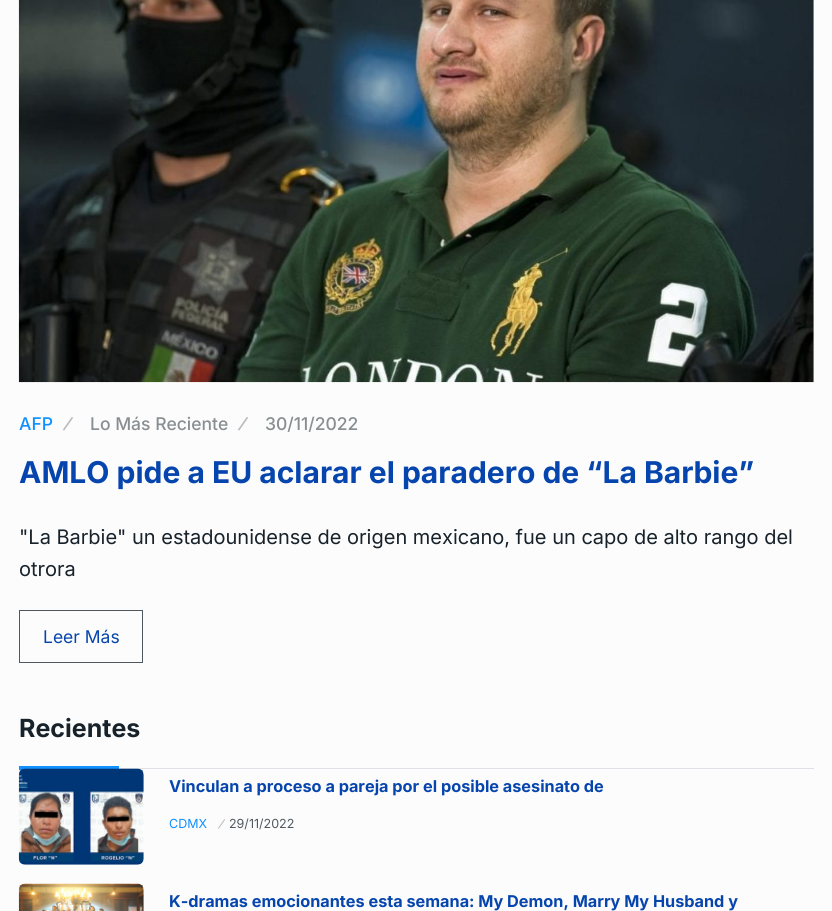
import math
import cairo

surface = cairo.ImageSurface(cairo.FORMAT_RGB24, 832, 911)
c = cairo.Context(surface)
options = cairo.FontOptions()
options.set_hint_metrics(cairo.HINT_METRICS_OFF)
options.set_hint_style(cairo.HINT_STYLE_NONE)
c.set_font_options(options)
c.set_miter_limit(4)
def C(code):
 c.set_source_rgb(*(v / 255 for v in bytes.fromhex(code[-6:])))
def F(family, size, italic, bold):
 c.select_font_face(family, cairo.FONT_SLANT_ITALIC if italic else cairo.FONT_SLANT_NORMAL, cairo.FONT_WEIGHT_BOLD if bold else cairo.FONT_WEIGHT_NORMAL)
 c.set_font_size(size)
def T(x, y, s):
 c.move_to(x, y)
 c.show_text(s)
def R(x, y, w, h):
 c.rectangle(x, y, w, h)
 c.fill()
def I(path, x, y, w, h):
 c.save()
 c.set_source_surface(cairo.ImageSurface.create_from_png(path), x, y)
 c.rectangle(x, y, w, h)
 c.fill()
 c.restore()
C('fcfcfc')
c.paint()
I('1.png',18,0,796,383)
F('Inter Medium',17.5,0,0)
C('1091ff')
T(19,430,'AFP')
C('b7bbbd')
c.save()
c.translate(63,428)
c.rotate(20 * math.pi / 180)
T(0,0,'/')
c.restore()
C('888e92')
T(90,430,'Lo Más Reciente')
C('b7bbbd')
c.save()
c.translate(238,428)
c.rotate(20 * math.pi / 180)
T(0,0,'/')
c.restore()
C('888e92')
T(265,430,'30/11/2022')
F('Inter',30,0,1)
C('0645ad')
T(19,483,'AMLO pide a EU aclarar el paradero de “La Barbie”')
F('Inter',20,0,0)
C('17222b')
T(19,544,'"La Barbie" un estadounidense de origen mexicano, fue un capo de alto rango del')
T(19,576,'otrora')
c.rectangle(19.5,610.5,123,52)
C('50585f')
c.set_line_width(1)
c.stroke()
F('Inter',17.5,0,0)
C('0645ad')
T(43,643,'Leer Más')
C('dee2e6')
R(119,768,695,1)
F('Inter',25,0,1)
C('17222b')
T(19,737,'Recientes')
C('1091ff')
R(19,766,100,4)
I('2.png',18,768,126,97)
F('Inter',16.25,0,1)
C('0645ad')
T(169,792,'Vinculan a proceso a pareja por el posible asesinato de')
F('Inter',12.5,0,0)
C('1091ff')
T(169,828,'CDMX')
C('b7bbbd')
c.save()
c.translate(218,827)
c.rotate(20 * math.pi / 180)
T(0,0,'/')
c.restore()
C('50595f')
T(229,828,'29/11/2022')
I('3.png',18,883,126,28)
F('Inter',16.25,0,1)
C('0645ad')
T(169,907,'K-dramas emocionantes esta semana: My Demon, Marry My Husband y')
surface.write_to_png('o.png')
